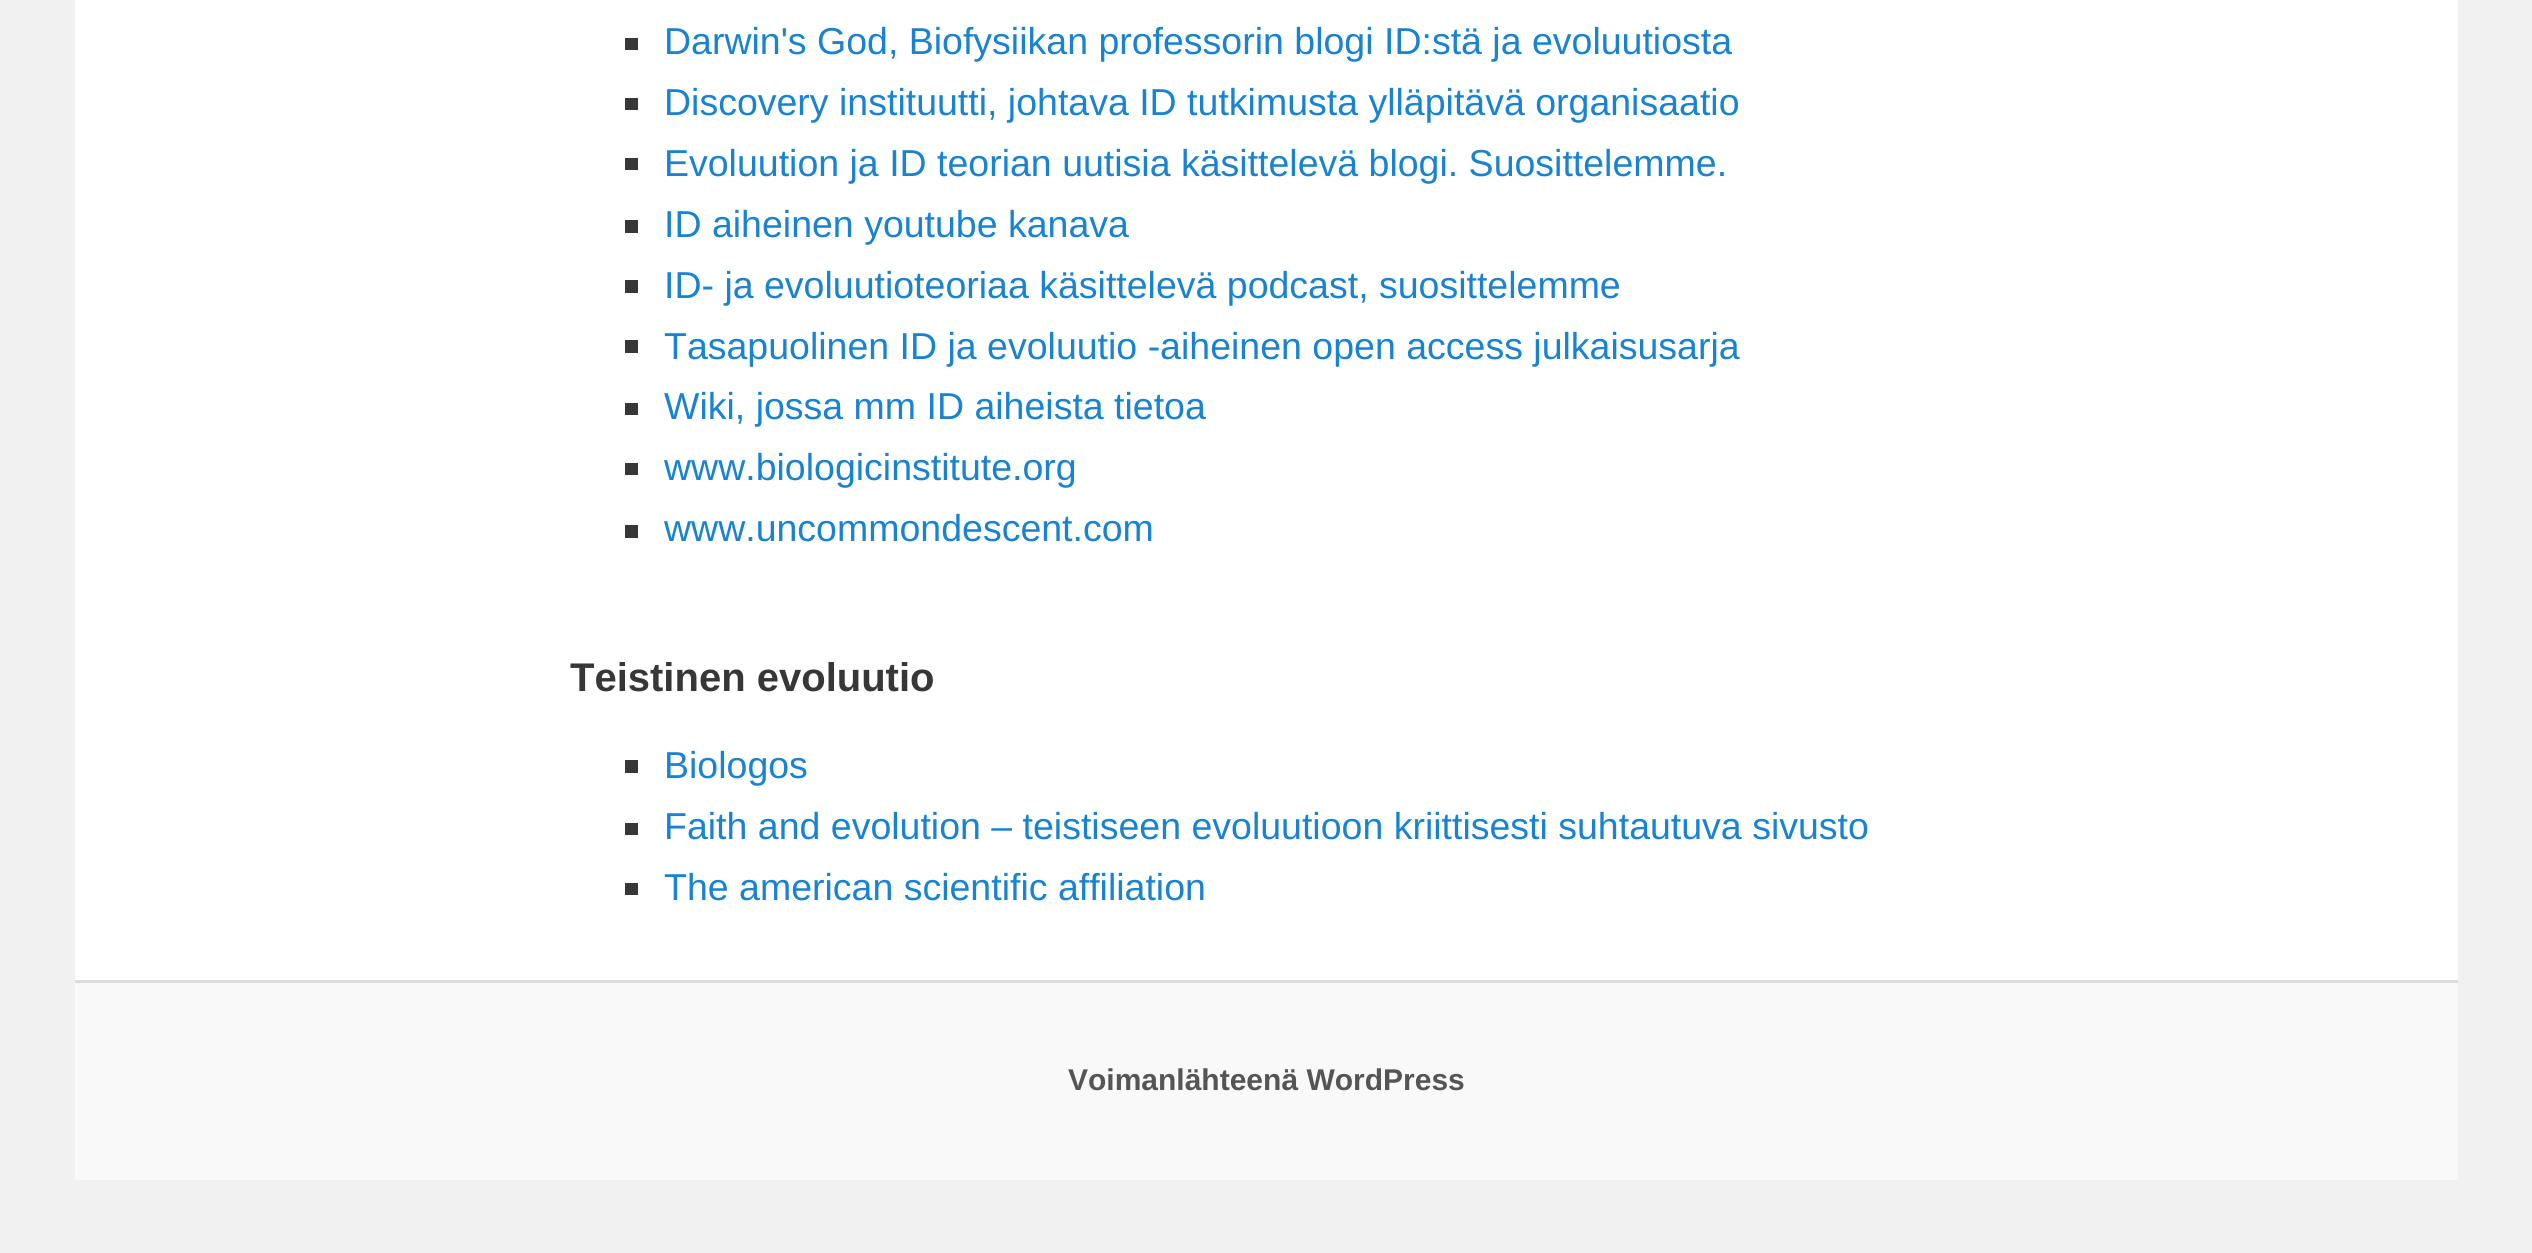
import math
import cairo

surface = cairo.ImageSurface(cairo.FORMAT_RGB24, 2532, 1253)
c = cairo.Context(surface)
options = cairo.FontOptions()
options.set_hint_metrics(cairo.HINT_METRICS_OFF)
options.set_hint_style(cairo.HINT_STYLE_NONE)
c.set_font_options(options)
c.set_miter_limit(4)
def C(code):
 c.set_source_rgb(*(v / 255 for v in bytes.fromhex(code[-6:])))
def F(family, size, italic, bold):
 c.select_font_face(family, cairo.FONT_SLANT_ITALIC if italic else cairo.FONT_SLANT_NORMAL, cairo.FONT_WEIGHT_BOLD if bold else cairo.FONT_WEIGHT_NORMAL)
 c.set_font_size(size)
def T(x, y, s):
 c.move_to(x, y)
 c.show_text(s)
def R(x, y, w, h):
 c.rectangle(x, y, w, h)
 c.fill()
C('f1f1f1')
c.paint()
C('ffffff')
R(75,0,2383,980)
C('373737')
R(625,38,13,12)
F('Liberation Sans',37.5,0,0)
C('1982d1')
T(664,54,'Darwin\'s God, Biofysiikan professorin blogi ID:stä ja evoluutiosta')
C('373737')
R(625,98,13,12)
C('1982d1')
T(664,115,'Discovery instituutti, johtava ID tutkimusta ylläpitävä organisaatio')
C('373737')
R(625,158,13,12)
C('1982d1')
T(664,176,'Evoluution ja ID teorian uutisia käsittelevä blogi. Suosittelemme.')
C('373737')
R(625,220,13,13)
C('1982d1')
T(664,237,'ID aiheinen youtube kanava')
C('373737')
R(625,280,13,13)
C('1982d1')
T(664,298,'ID- ja evoluutioteoriaa käsittelevä podcast, suosittelemme')
C('373737')
R(625,340,13,13)
C('1982d1')
T(664,359,'Tasapuolinen ID ja evoluutio -aiheinen open access julkaisusarja')
C('373737')
R(625,403,13,12)
C('1982d1')
T(664,419,'Wiki, jossa mm ID aiheista tietoa')
C('373737')
R(625,463,13,12)
C('1982d1')
T(664,480,'www.biologicinstitute.org')
C('373737')
R(625,525,13,13)
C('1982d1')
T(664,541,'www.uncommondescent.com')
F('Liberation Sans',40,0,1)
C('373737')
T(570,691,'Teistinen evoluutio')
R(625,760,13,13)
F('Liberation Sans',37.5,0,0)
C('1982d1')
T(664,778,'Biologos')
C('373737')
R(625,823,13,12)
C('1982d1')
T(664,839,'Faith and evolution – teistiseen evoluutioon kriittisesti suhtautuva sivusto')
C('373737')
R(625,883,13,12)
C('1982d1')
T(664,900,'The american scientific affiliation')
C('f9f9f9')
R(75,983,2383,197)
C('dddddd')
R(75,980,2383,3)
F('Liberation Sans',30,0,1)
C('555555')
T(1068,1090,'Voimanlähteenä WordPress')
surface.write_to_png('o.png')
